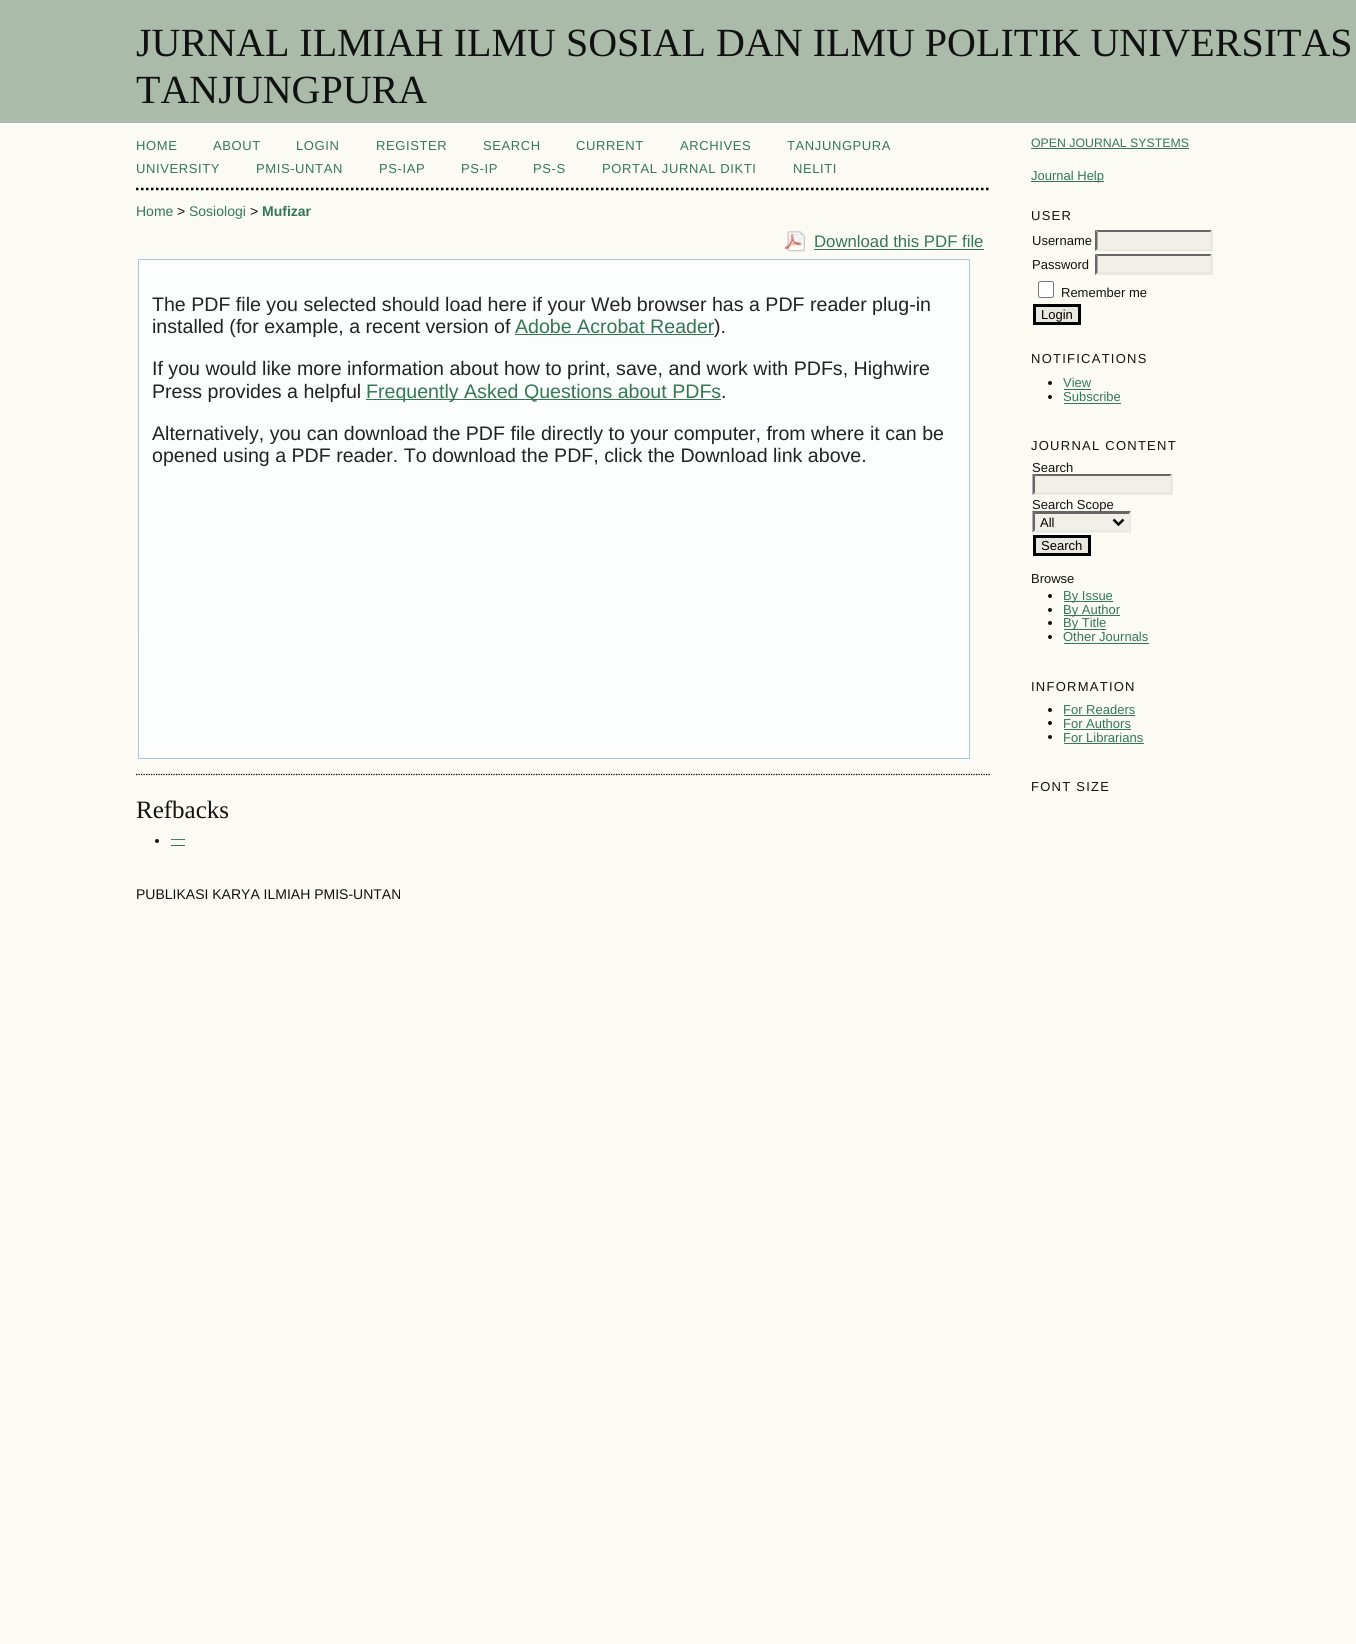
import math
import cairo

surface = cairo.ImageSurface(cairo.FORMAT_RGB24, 1356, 1644)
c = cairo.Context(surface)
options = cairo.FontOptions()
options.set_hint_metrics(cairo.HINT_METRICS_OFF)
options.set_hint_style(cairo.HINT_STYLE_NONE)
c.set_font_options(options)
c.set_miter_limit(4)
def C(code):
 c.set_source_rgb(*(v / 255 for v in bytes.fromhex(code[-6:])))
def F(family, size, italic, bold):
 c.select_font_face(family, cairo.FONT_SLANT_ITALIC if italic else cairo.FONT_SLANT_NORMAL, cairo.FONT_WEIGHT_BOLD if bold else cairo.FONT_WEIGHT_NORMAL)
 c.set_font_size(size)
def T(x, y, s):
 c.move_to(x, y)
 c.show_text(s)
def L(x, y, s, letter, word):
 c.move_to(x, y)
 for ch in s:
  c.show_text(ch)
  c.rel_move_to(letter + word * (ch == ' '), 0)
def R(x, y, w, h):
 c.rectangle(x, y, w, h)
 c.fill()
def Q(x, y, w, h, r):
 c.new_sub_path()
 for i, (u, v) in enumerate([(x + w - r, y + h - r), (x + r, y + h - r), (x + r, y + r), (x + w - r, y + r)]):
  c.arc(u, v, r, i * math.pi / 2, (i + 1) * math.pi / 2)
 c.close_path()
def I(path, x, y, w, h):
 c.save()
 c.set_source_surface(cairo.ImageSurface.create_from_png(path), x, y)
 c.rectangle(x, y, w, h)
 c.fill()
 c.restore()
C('fbfbf3')
c.paint()
C('aabbaa')
R(0,0,1356,123)
F('Liberation Serif',40,0,0)
C('111111')
T(136,56,'JURNAL ILMIAH ILMU SOSIAL DAN ILMU POLITIK UNIVERSITAS')
T(136,103,'TANJUNGPURA')
c.new_path()
c.move_to(136,189)
c.line_to(990,189)
C('000000')
c.set_line_width(2.5)
c.set_dash([2.5,2.5])
c.stroke()
F('Liberation Sans',13,0,0)
C('337755')
L(136,150,'HOME',.6,0)
L(213,150,'ABOUT',.6,0)
L(296,150,'LOGIN',.6,0)
L(376,150,'REGISTER',.6,0)
L(483,150,'SEARCH',.6,0)
L(576,150,'CURRENT',.6,0)
L(680,150,'ARCHIVES',.6,0)
L(787,150,'TANJUNGPURA',.6,0)
L(136,173,'UNIVERSITY',.6,0)
L(256,173,'PMIS-UNTAN',.6,0)
L(379,173,'PS-IAP',.6,0)
L(461,173,'PS-IP',.6,0)
L(533,173,'PS-S',.6,0)
L(602,173,'PORTAL JURNAL DIKTI',.6,0)
L(793,173,'NELITI',.6,0)
F('Liberation Sans',14,0,0)
T(136,216,'Home')
C('111111')
T(177,216,'>')
C('337755')
T(189,216,'Sosiologi')
C('111111')
T(250,216,'>')
F('Liberation Sans',14,0,1)
C('337755')
T(262,216,'Mufizar')
I('1.png',785,231,20,21)
F('Liberation Sans',16.75,0,0)
T(814,247,'Download this PDF file')
R(814,249,170,1)
C('fcfdfd')
c.rectangle(138.5,259.5,831,499)
c.fill_preserve()
C('a6c9e2')
c.set_line_width(1)
c.set_dash([])
c.stroke()
C('fcfcf8')
R(137,633,1,124)
F('Liberation Sans',19.6,0,0)
C('222222')
T(152,311,'The PDF file you selected should load here if your Web browser has a PDF reader plug-in')
T(152,333,'installed (for example, a recent version of')
C('337755')
T(515,333,'Adobe Acrobat Reader')
R(515,334,199,1)
C('222222')
T(714,333,').')
T(152,375,'If you would like more information about how to print, save, and work with PDFs, Highwire')
T(152,398,'Press provides a helpful')
C('337755')
R(366,399,355,1)
T(366,398,'Frequently Asked Questions about PDFs')
C('222222')
T(721,398,'.')
T(152,440,'Alternatively, you can download the PDF file directly to your computer, from where it can be')
T(152,462,'opened using a PDF reader. To download the PDF, click the Download link above.')
c.new_path()
c.move_to(136,774.5)
c.line_to(990,774.5)
C('000000')
c.set_line_width(1.2)
c.set_dash([1.25,1.25])
c.stroke()
F('Liberation Serif',25,0,0)
C('111111')
T(136,818,'Refbacks')
c.new_path()
c.arc(157,841,2,0,2 * math.pi)
c.fill()
F('Liberation Sans',14,0,0)
C('337755')
T(171,843,'—')
R(171,845,14,1)
C('111111')
T(136,899,'PUBLIKASI KARYA ILMIAH PMIS-UNTAN')
F('Liberation Sans',12.3,0,0)
C('337755')
T(1031,147,'OPEN JOURNAL SYSTEMS')
R(1031,148,158,1)
R(1031,181,73,1)
F('Liberation Sans',13,0,0)
T(1031,180,'Journal Help')
C('111111')
L(1031,220,'USER',1.25,0)
T(1032,245,'Username')
C('f0f0e8')
R(1095,230,118,21)
C('666666')
c.new_path()
c.move_to(1095,230)
c.line_to(1212,230)
c.line_to(1210,232)
c.line_to(1098,232)
c.close_path()
c.fill()
C('e8e8e1')
c.new_path()
c.move_to(1212.5,230)
c.line_to(1212.5,251)
c.line_to(1210,249)
c.line_to(1210,232.5)
c.close_path()
c.fill()
c.new_path()
c.move_to(1212,251)
c.line_to(1095,251)
c.line_to(1098,249)
c.line_to(1210,249)
c.close_path()
c.fill()
C('666666')
c.new_path()
c.move_to(1095,251)
c.line_to(1095,230)
c.line_to(1097.5,232.5)
c.line_to(1097.5,249)
c.close_path()
c.fill()
C('111111')
T(1032,269,'Password')
C('f0f0e8')
R(1095,254,118,21)
C('666666')
c.new_path()
c.move_to(1095,254)
c.line_to(1212,254)
c.line_to(1210,256)
c.line_to(1098,256)
c.close_path()
c.fill()
C('e8e8e1')
c.new_path()
c.move_to(1212.5,254)
c.line_to(1212.5,275)
c.line_to(1210,272.5)
c.line_to(1210,256)
c.close_path()
c.fill()
c.new_path()
c.move_to(1212,275)
c.line_to(1095,275)
c.line_to(1098,272)
c.line_to(1210,272)
c.close_path()
c.fill()
C('666666')
c.new_path()
c.move_to(1095,275)
c.line_to(1095,254)
c.line_to(1097.5,256)
c.line_to(1097.5,272.5)
c.close_path()
c.fill()
C('ffffff')
Q(1038.5,281.5,15,16,2)
c.fill_preserve()
C('767676')
c.set_line_width(1)
c.set_dash([])
c.stroke()
C('111111')
T(1061,297,'Remember me')
C('e8e8e1')
c.rectangle(1034.5,305.5,45,18)
c.fill_preserve()
C('000000')
c.set_line_width(3)
c.stroke()
T(1041,319,'Login')
C('111111')
L(1031,363,'NOTIFICATIONS',1.25,0)
c.new_path()
c.arc(1050,383,2,0,2 * math.pi)
c.fill()
C('337755')
T(1063,387,'View')
R(1064,389,27,1)
C('111111')
c.new_path()
c.arc(1050,397,2,0,2 * math.pi)
c.fill()
C('337755')
T(1063,401,'Subscribe')
R(1064,403,57,1)
C('111111')
L(1031,450,'JOURNAL CONTENT',1.25,0)
T(1032,472,'Search')
C('f0f0e8')
R(1033,474,140,21)
C('666666')
c.new_path()
c.move_to(1032,474)
c.line_to(1172,474)
c.line_to(1170,476)
c.line_to(1035,476)
c.close_path()
c.fill()
C('e8e8e1')
c.new_path()
c.move_to(1172.5,474)
c.line_to(1172.5,495)
c.line_to(1170,492.5)
c.line_to(1170,476)
c.close_path()
c.fill()
c.new_path()
c.move_to(1172,495)
c.line_to(1032,495)
c.line_to(1035,492)
c.line_to(1170,492)
c.close_path()
c.fill()
C('666666')
c.new_path()
c.move_to(1032.5,495)
c.line_to(1032.5,474)
c.line_to(1035,476)
c.line_to(1035,492.5)
c.close_path()
c.fill()
C('111111')
T(1032,509,'Search Scope')
C('f0f0e8')
R(1033,511,98,22)
C('666666')
c.new_path()
c.move_to(1032,511)
c.line_to(1131,511)
c.line_to(1129,514)
c.line_to(1035,514)
c.close_path()
c.fill()
C('e8e8e1')
c.new_path()
c.move_to(1131,511)
c.line_to(1131,532.5)
c.line_to(1129,530)
c.line_to(1129,514)
c.close_path()
c.fill()
c.new_path()
c.move_to(1131,532)
c.line_to(1032,532)
c.line_to(1035,530)
c.line_to(1129,530)
c.close_path()
c.fill()
C('666666')
c.new_path()
c.move_to(1032.5,532.5)
c.line_to(1032.5,511)
c.line_to(1035,514)
c.line_to(1035,530)
c.close_path()
c.fill()
c.new_path()
c.move_to(1113.5,519.5)
c.line_to(1118.5,524.5)
c.line_to(1123.5,519.5)
C('000000')
c.set_line_width(2.5)
c.stroke()
T(1040,527,'All')
C('e8e8e1')
c.rectangle(1034.5,536.5,55,18)
c.fill_preserve()
C('000000')
c.set_line_width(3)
c.stroke()
T(1041,550,'Search')
C('111111')
T(1031,583,'Browse')
c.new_path()
c.arc(1050,596,2,0,2 * math.pi)
c.fill()
C('337755')
R(1064,601,49,1)
T(1063,600,'By Issue')
C('111111')
c.new_path()
c.arc(1050,610,2,0,2 * math.pi)
c.fill()
C('337755')
R(1064,615,56,1)
T(1063,614,'By Author')
C('111111')
c.new_path()
c.arc(1050,623,2,0,2 * math.pi)
c.fill()
C('337755')
R(1064,629,42,1)
T(1063,627,'By Title')
C('111111')
c.new_path()
c.arc(1050,637,2,0,2 * math.pi)
c.fill()
C('337755')
T(1063,641,'Other Journals')
R(1064,643,85,1)
C('111111')
L(1031,691,'INFORMATION',1.25,0)
c.new_path()
c.arc(1050,710,2,0,2 * math.pi)
c.fill()
C('337755')
T(1063,714,'For Readers')
R(1064,715,71,1)
C('111111')
c.new_path()
c.arc(1050,723,2,0,2 * math.pi)
c.fill()
C('337755')
T(1063,728,'For Authors')
R(1064,729,67,1)
C('111111')
c.new_path()
c.arc(1050,737,2,0,2 * math.pi)
c.fill()
C('337755')
T(1063,742,'For Librarians')
R(1064,743,80,1)
C('111111')
L(1031,791,'FONT SIZE',1.25,0)
surface.write_to_png('o.png')
